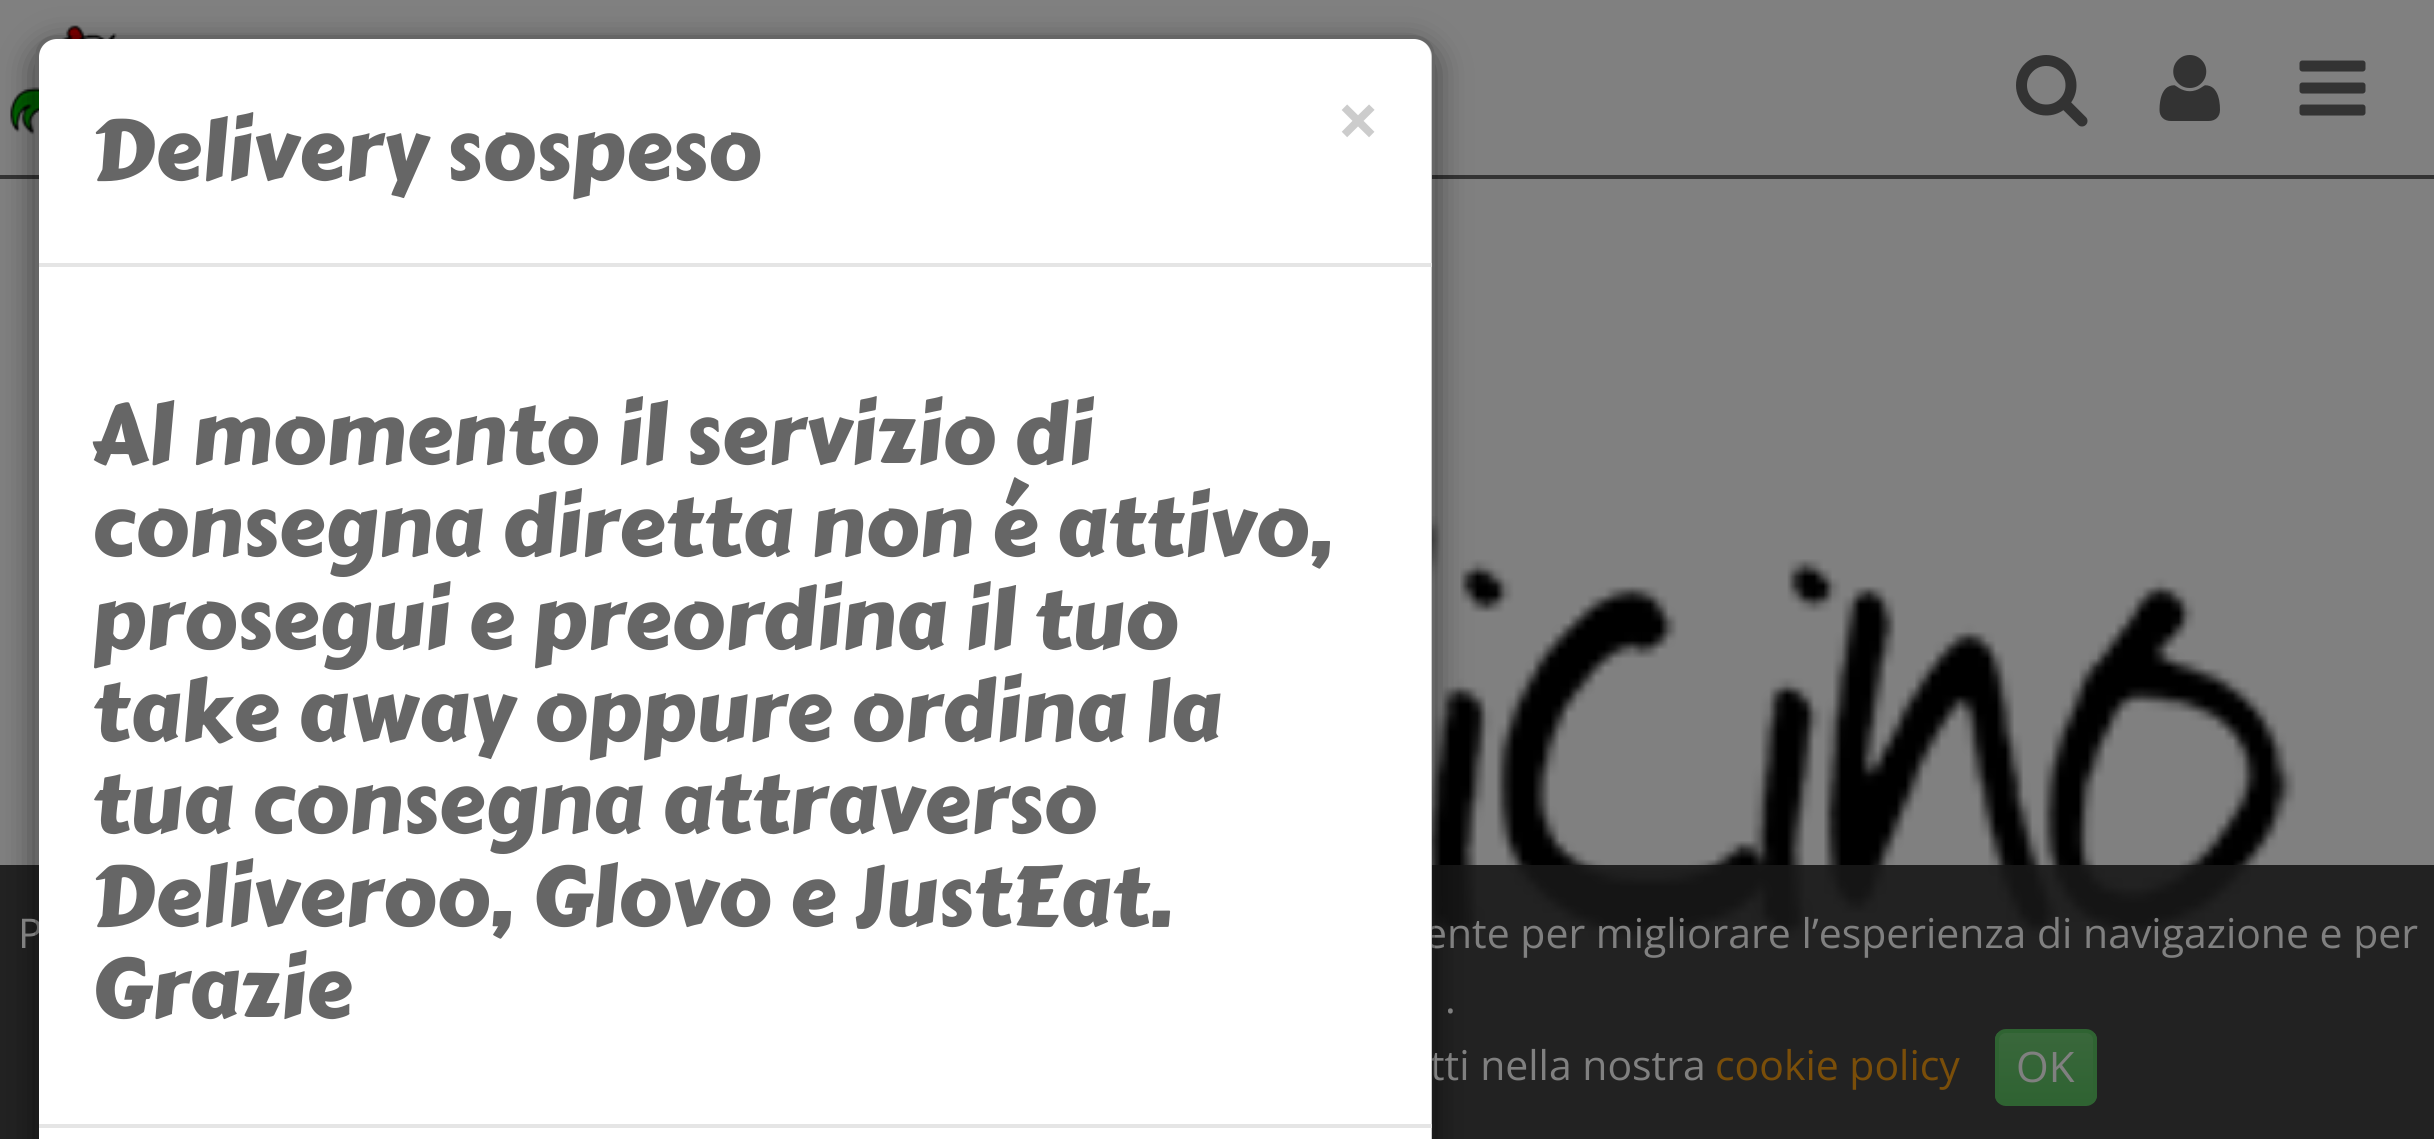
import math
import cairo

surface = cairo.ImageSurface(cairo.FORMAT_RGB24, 2434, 1139)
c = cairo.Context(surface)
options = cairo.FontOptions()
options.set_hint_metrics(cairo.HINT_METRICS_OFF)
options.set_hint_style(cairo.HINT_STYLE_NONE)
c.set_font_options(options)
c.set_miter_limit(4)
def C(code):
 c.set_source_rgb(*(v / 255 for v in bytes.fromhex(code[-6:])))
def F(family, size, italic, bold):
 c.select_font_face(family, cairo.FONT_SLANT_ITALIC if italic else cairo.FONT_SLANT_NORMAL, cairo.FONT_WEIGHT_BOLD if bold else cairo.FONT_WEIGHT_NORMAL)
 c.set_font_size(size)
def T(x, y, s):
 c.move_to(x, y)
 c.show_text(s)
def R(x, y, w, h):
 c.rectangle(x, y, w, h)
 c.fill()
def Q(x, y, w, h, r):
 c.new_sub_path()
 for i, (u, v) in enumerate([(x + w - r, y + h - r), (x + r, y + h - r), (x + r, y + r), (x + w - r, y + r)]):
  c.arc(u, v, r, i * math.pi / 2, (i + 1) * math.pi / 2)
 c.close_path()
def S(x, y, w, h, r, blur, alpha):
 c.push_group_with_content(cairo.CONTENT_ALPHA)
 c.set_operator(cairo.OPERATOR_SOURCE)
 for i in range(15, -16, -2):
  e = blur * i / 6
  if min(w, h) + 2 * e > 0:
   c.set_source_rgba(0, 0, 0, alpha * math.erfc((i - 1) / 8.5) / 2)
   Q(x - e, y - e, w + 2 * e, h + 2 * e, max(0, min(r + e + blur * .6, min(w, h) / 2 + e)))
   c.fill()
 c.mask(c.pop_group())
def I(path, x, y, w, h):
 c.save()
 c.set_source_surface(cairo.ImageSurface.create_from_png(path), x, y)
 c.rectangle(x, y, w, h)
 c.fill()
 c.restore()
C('808080')
c.paint()
C('333333')
R(0,175,2434,4)
I('1.png',10,25,107,110)
I('2.png',2016,55,72,72)
I('3.png',2159,55,61,66)
I('4.png',2299,60,67,56)
I('5.png',1432,516,864,424)
c.set_source_rgba(0.094,0.094,0.094,0.9)
R(0,865,2434,274)
c.save()
c.set_fill_rule(cairo.FILL_RULE_EVEN_ODD)
c.new_path()
c.move_to(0,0)
c.line_to(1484,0)
c.line_to(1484,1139)
c.line_to(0,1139)
c.close_path()
c.move_to(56,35)
c.line_to(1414,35)
c.curve_to(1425.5,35,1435,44.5,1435,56)
c.line_to(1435,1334)
c.curve_to(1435,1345.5,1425.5,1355,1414,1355)
c.line_to(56,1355)
c.curve_to(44.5,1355,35,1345.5,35,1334)
c.line_to(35,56)
c.curve_to(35,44.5,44.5,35,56,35)
c.close_path()
c.clip()
C('000000')
S(35,46,1400,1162,21,16,.5)
c.restore()
F('Open Sans',40.95,0,0)
C('808080')
T(18,948,'P')
T(1424,948,'ente per migliorare l’esperienza di navigazione e per')
T(1430,1080,'tti nella nostra')
C('ffffff')
c.new_path()
c.move_to(57,39)
c.line_to(1414,39)
c.curve_to(1424,39,1432,47,1432,57)
c.line_to(1432,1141)
c.line_to(39,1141)
c.line_to(39,57)
c.curve_to(39,47,47,39,57,39)
c.close_path()
c.fill()
Q(37,37,1396,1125,19)
c.set_source_rgba(0,0,0,0.2)
c.set_line_width(4)
c.stroke()
C('e5e5e5')
R(39,263,1393,4)
F('Carter One',84,0,0)
C('666666')
T(91,179,'Delivery sospeso')
F('Open Sans',74,0,1)
C('cccccc')
T(1337,147,'×')
F('Carter One',84,0,0)
C('666666')
T(91,463,'Al momento il servizio di')
T(91,555,'consegna diretta non é attivo,')
T(91,648,'prosegui e preordina il tuo')
T(91,740,'take away oppure ordina la')
T(91,832,'tua consegna attraverso')
T(91,925,'Deliveroo, Glovo e JustEat.')
T(91,1017,'Grazie')
C('e5e5e5')
R(39,1124,1393,4)
F('Open Sans',40.95,0,0)
C('808080')
T(1445,1013,'.')
C('7a4e09')
T(1715,1080,'cookie policy')
c.save()
Q(1995,1029,102,77,11)
c.clip()
gradient = cairo.LinearGradient(2046,1033,2046,1103)
gradient.add_color_stop_rgba(0,0.224,0.404,0.231,1)
gradient.add_color_stop_rgba(1,0.184,0.388,0.196,1)
c.set_source(gradient)
R(1995,1033,102,70)
c.restore()
Q(1997,1031,98,73,9)
C('2f6332')
c.stroke()
F('Open Sans',42,0,0)
C('808080')
T(2016,1082,'OK')
surface.write_to_png('o.png')
